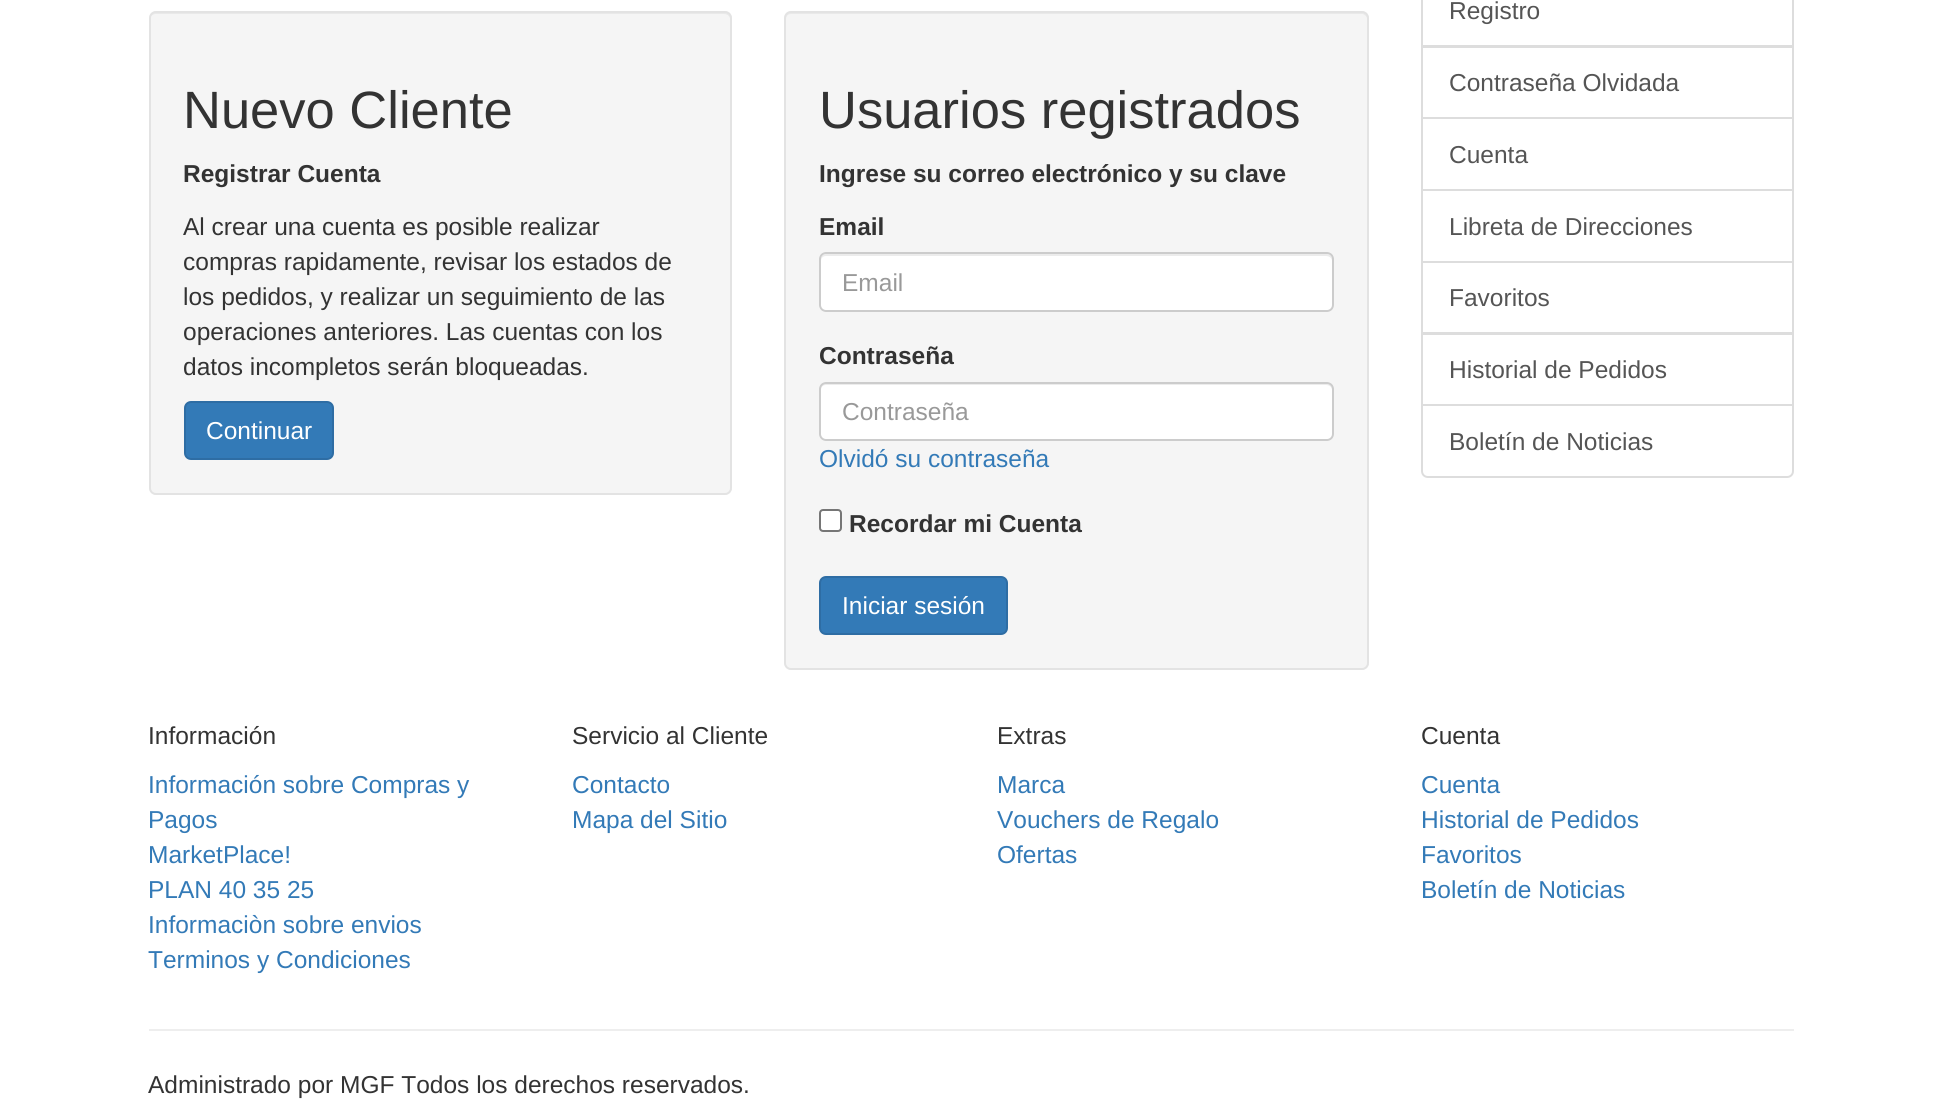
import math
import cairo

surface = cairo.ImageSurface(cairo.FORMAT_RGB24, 1940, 1117)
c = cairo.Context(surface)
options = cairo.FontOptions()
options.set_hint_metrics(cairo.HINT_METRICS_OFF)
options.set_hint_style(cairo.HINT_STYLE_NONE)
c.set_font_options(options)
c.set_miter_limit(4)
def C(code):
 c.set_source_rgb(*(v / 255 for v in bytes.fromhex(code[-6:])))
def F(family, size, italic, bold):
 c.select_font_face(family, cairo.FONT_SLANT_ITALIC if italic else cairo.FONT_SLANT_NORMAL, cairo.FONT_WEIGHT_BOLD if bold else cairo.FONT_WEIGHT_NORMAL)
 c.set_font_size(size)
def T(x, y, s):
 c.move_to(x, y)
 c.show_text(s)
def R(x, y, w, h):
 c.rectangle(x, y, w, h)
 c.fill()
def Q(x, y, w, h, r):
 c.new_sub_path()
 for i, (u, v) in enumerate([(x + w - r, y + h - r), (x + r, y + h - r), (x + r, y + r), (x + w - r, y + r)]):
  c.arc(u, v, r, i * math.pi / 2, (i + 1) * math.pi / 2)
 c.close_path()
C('ffffff')
c.paint()
C('f5f5f5')
Q(149,11,583,484,7)
c.fill()
C('e9e9e9')
c.new_path()
c.move_to(156,14)
c.line_to(724,14)
c.curve_to(727,14,730,16,730,19)
c.line_to(730,17)
c.curve_to(730,14,728,12,725,12)
c.line_to(156,12)
c.curve_to(154,12,151,14,151,16)
c.curve_to(152,15,154,14,156,14)
c.close_path()
c.fill()
Q(150,12,581,482,6)
C('e3e3e3')
c.stroke()
F('Liberation Sans',52.5,0,0)
C('333333')
T(183,128,'Nuevo Cliente')
F('Liberation Sans',24.5,0,1)
T(183,182,'Registrar Cuenta')
F('Liberation Sans',24.5,0,0)
T(183,235,'Al crear una cuenta es posible realizar')
T(183,270,'compras rapidamente, revisar los estados de')
T(183,305,'los pedidos, y realizar un seguimiento de las')
T(183,340,'operaciones anteriores. Las cuentas con los')
T(183,375,'datos incompletos serán bloqueadas.')
C('337ab7')
Q(185,402,148,57,6)
c.fill_preserve()
C('2e6da4')
c.stroke()
C('ffffff')
T(206,439,'Continuar')
C('f5f5f5')
Q(784,11,585,659,7)
c.fill()
C('e9e9e9')
c.new_path()
c.move_to(791,14)
c.line_to(1362,14)
c.curve_to(1364,14,1367,16,1367,19)
c.line_to(1367,17)
c.curve_to(1367,14,1365,12,1362,12)
c.line_to(791,12)
c.curve_to(788,12,786,14,786,17)
c.line_to(786,19)
c.curve_to(786,16,788,14,791,14)
c.close_path()
c.fill()
Q(785,12,583,657,6)
C('e3e3e3')
c.stroke()
F('Liberation Sans',52.5,0,0)
C('333333')
T(819,128,'Usuarios registrados')
F('Liberation Sans',24.5,0,1)
T(819,182,'Ingrese su correo electrónico y su clave')
T(819,235,'Email')
C('ffffff')
Q(819,252,515,60,7)
c.fill()
C('ececec')
c.new_path()
c.move_to(826,256)
c.line_to(1326,256)
c.curve_to(1329,256,1332,258,1332,261)
c.line_to(1332,259)
c.curve_to(1332,256,1330,254,1327,254)
c.line_to(826,254)
c.curve_to(823,254,821,256,821,259)
c.line_to(821,261)
c.curve_to(821,258,823,256,826,256)
c.close_path()
c.fill()
Q(820,253,513,58,6)
C('cccccc')
c.stroke()
F('Liberation Sans',24.5,0,0)
C('999999')
T(842,291,'Email')
F('Liberation Sans',24.5,0,1)
C('333333')
T(819,364,'Contraseña')
C('ffffff')
Q(819,382,515,59,7)
c.fill()
C('ececec')
c.new_path()
c.move_to(826,385)
c.line_to(1326,385)
c.curve_to(1329,385,1332,387,1332,390)
c.line_to(1332,388)
c.curve_to(1332,385,1330,383,1327,383)
c.line_to(826,383)
c.curve_to(823,383,821,385,821,388)
c.line_to(821,390)
c.curve_to(821,387,823,385,826,385)
c.close_path()
c.fill()
Q(820,383,513,57,6)
C('cccccc')
c.stroke()
F('Liberation Sans',24.5,0,0)
C('999999')
T(842,420,'Contraseña')
C('337ab7')
T(819,467,'Olvidó su contraseña')
C('ffffff')
Q(820,510,21,21,3)
c.fill_preserve()
C('767676')
c.stroke()
F('Liberation Sans',24.5,0,1)
C('333333')
T(849,532,'Recordar mi Cuenta')
C('337ab7')
Q(820,577,187,57,6)
c.fill_preserve()
C('2e6da4')
c.stroke()
F('Liberation Sans',24.5,0,0)
C('ffffff')
T(842,614,'Iniciar sesión')
c.rectangle(1422,-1,371,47)
C('dddddd')
c.stroke()
C('555555')
T(1449,19,'Registro')
c.rectangle(1422,47,371,71)
C('dddddd')
c.stroke()
C('555555')
T(1449,91,'Contraseña Olvidada')
c.rectangle(1422,118,371,72)
C('dddddd')
c.stroke()
C('555555')
T(1449,163,'Cuenta')
c.rectangle(1422,190,371,72)
C('dddddd')
c.stroke()
C('555555')
T(1449,235,'Libreta de Direcciones')
c.rectangle(1422,262,371,71)
C('dddddd')
c.stroke()
C('555555')
T(1449,306,'Favoritos')
c.rectangle(1422,334,371,71)
C('dddddd')
c.stroke()
C('555555')
T(1449,378,'Historial de Pedidos')
C('ffffff')
c.new_path()
c.move_to(1422,405)
c.line_to(1793,405)
c.line_to(1793,471)
c.curve_to(1793,474.5,1790.5,477,1787,477)
c.line_to(1428,477)
c.curve_to(1424.5,477,1422,474.5,1422,471)
c.close_path()
c.fill_preserve()
C('dddddd')
c.stroke()
C('555555')
T(1449,450,'Boletín de Noticias')
C('333333')
T(148,744,'Información')
C('337ab7')
T(148,793,'Información sobre Compras y')
T(148,828,'Pagos')
T(148,863,'MarketPlace!')
T(148,898,'PLAN 40 35 25')
T(148,933,'Informaciòn sobre envios')
T(148,968,'Terminos y Condiciones')
C('333333')
T(572,744,'Servicio al Cliente')
C('337ab7')
T(572,793,'Contacto')
T(572,828,'Mapa del Sitio')
C('333333')
T(997,744,'Extras')
C('337ab7')
T(997,793,'Marca')
T(997,828,'Vouchers de Regalo')
T(997,863,'Ofertas')
C('333333')
T(1421,744,'Cuenta')
C('337ab7')
T(1421,793,'Cuenta')
T(1421,828,'Historial de Pedidos')
T(1421,863,'Favoritos')
T(1421,898,'Boletín de Noticias')
C('eeeeee')
R(149,1029,1645,2)
C('333333')
T(148,1093,'Administrado por MGF Todos los derechos reservados.')
surface.write_to_png('o.png')
